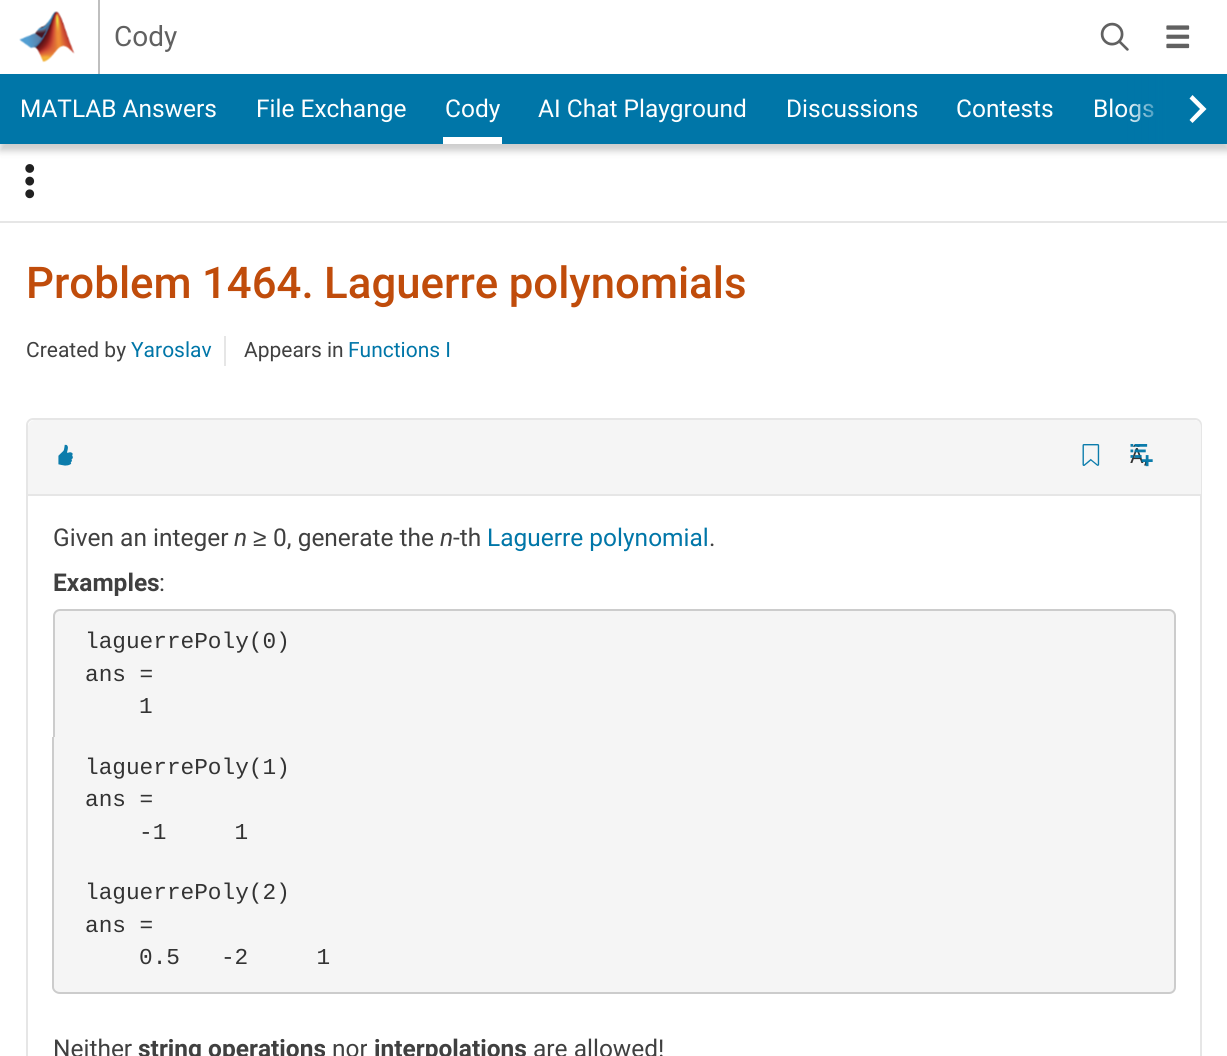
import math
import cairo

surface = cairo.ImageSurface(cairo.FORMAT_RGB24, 1227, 1056)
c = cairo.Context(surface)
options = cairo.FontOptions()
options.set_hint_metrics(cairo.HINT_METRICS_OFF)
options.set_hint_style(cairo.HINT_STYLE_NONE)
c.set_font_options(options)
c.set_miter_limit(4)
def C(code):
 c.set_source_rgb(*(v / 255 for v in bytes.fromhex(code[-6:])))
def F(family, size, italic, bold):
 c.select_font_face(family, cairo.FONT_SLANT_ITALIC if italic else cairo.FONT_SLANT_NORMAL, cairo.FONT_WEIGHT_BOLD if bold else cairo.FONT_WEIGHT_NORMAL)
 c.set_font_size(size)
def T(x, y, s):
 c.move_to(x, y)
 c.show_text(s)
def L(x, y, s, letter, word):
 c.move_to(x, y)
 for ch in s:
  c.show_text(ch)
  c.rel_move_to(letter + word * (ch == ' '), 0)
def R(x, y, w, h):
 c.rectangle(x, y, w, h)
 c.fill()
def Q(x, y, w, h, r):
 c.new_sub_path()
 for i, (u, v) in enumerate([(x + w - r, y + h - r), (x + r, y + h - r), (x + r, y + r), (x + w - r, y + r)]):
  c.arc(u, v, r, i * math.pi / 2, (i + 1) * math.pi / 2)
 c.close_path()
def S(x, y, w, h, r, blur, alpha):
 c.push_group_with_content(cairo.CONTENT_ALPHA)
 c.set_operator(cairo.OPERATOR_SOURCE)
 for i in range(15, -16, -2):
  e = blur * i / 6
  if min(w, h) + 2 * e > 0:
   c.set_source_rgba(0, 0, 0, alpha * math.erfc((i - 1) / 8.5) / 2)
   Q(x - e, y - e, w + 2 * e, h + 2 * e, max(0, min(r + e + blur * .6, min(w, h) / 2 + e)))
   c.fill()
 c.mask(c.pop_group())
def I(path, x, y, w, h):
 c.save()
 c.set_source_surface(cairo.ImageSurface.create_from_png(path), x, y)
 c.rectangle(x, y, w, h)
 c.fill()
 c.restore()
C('ffffff')
c.paint()
C('bfbfbf')
R(98,0,2,74)
I('1.png',19,11,56,52)
F('Roboto',28,0,0)
C('616161')
T(114,46,'Cody')
I('2.png',1100,22,29,29)
I('3.png',1166,25,24,24)
C('000000')
S(0,81,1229,70,0,3.5,.2)
C('0076a8')
R(0,74,1167,70)
F('Roboto',24.5,0,0)
C('ffffff')
T(20,117,'MATLAB Answers')
T(256,117,'File Exchange')
R(443,137,59,7)
T(445,117,'Cody')
T(538,117,'AI Chat Playground')
T(786,117,'Discussions')
T(956,117,'Contests')
T(1093,117,'Blogs')
gradient = cairo.LinearGradient(1124,109,1211,109)
gradient.add_color_stop_rgba(0,0,0.463,0.659,0)
gradient.add_color_stop_rgba(.5,0,0.463,0.659,1)
gradient.add_color_stop_rgba(1,0,0.463,0.659,1)
c.set_source(gradient)
R(1125,74,83,70)
C('ffffff')
c.new_path()
c.move_to(1192.5,95)
c.line_to(1189.5,98.5)
c.line_to(1200,109)
c.line_to(1189.5,120)
c.line_to(1192.5,123)
c.line_to(1206.5,109)
c.close_path()
c.fill()
C('0076a8')
R(1208,74,19,70)
C('e6e6e6')
R(0,221,1227,2)
I('4.png',25,164,10,35)
F('Roboto Medium',43.75,0,0)
C('c04c0b')
L(26,298,'Problem 1464. Laguerre polynomials',0,-.5)
F('Roboto',21,0,0)
C('404040')
T(26,357,'Created by')
C('0076a8')
T(131,357,'Yaroslav')
C('e6e6e6')
R(224,336,2,30)
C('404040')
T(244,357,'Appears in')
C('0076a8')
T(348,357,'Functions I')
Q(27,419,1174,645,6)
C('e6e6e6')
c.stroke()
C('f5f5f5')
c.new_path()
c.move_to(35,420)
c.line_to(1194,420)
c.curve_to(1198,420,1201,423,1201,427)
c.line_to(1201,495)
c.line_to(28,495)
c.line_to(28,427)
c.curve_to(28,423,31,420,35,420)
c.close_path()
c.fill()
C('e6e6e6')
R(28,494,1173,2)
I('5.png',58,444,15,22)
I('6.png',1082,444,18,22)
C('333333')
T(1130,463,'Ã‚')
I('7.png',1130,444,23,23)
F('Roboto',24.5,0,0)
C('404040')
T(53,546,'Given an integer')
F('Roboto',24.5,1,0)
T(234,546,'n')
F('Liberation Sans',24.5,0,0)
T(253,546,'≥')
F('Roboto',24.5,0,0)
T(273,546,'0, generate the')
F('Roboto',24.5,1,0)
T(440,546,'n')
F('Roboto',24.5,0,0)
T(453,546,'-th')
C('0076a8')
T(487,546,'Laguerre polynomial')
C('404040')
T(709,546,'.')
F('Roboto',24.5,0,1)
T(53,591,'Examples')
F('Roboto',24.5,0,0)
T(159,591,':')
C('f5f5f5')
Q(54,610,1121,133,6)
c.fill_preserve()
C('cccccc')
c.stroke()
F('Liberation Mono',22.75,0,0)
C('333333')
T(85,648,'laguerrePoly(0)')
T(85,681,'ans =')
T(139,713,'1')
C('f5f5f5')
R(54,737,1120,124)
C('cccccc')
c.set_fill_rule(cairo.FILL_RULE_EVEN_ODD)
c.new_path()
c.move_to(52,737)
c.line_to(1176,737)
c.line_to(1176,861)
c.curve_to(1176,865,1173,868,1169,868)
c.line_to(60,868)
c.curve_to(56,868,52,865,52,861)
c.close_path()
c.move_to(54,737)
c.line_to(1174,737)
c.line_to(1174,861)
c.curve_to(1174,864,1172,866,1169,866)
c.line_to(60,866)
c.curve_to(57,866,54,864,54,861)
c.close_path()
c.fill()
C('333333')
T(85,774,'laguerrePoly(1)')
T(85,806,'ans =')
T(139,839,'-1     1')
C('f5f5f5')
c.new_path()
c.move_to(53,861)
c.line_to(1176,861)
c.line_to(1176,987)
c.curve_to(1176,991,1173,994,1169,994)
c.line_to(60,994)
c.curve_to(56,994,53,991,53,987)
c.close_path()
c.fill()
C('cccccc')
c.new_path()
c.move_to(52,861)
c.line_to(1176,861)
c.line_to(1176,987)
c.curve_to(1176,991,1173,994,1169,994)
c.line_to(60,994)
c.curve_to(56,994,52,991,52,987)
c.close_path()
c.move_to(54,861)
c.line_to(1174,861)
c.line_to(1174,987)
c.curve_to(1174,990,1172,992,1169,992)
c.line_to(60,992)
c.curve_to(57,992,54,990,54,987)
c.close_path()
c.fill()
C('333333')
T(85,899,'laguerrePoly(2)')
T(85,932,'ans =')
T(139,964,'0.5   -2     1')
F('Roboto',24.5,0,0)
C('404040')
T(53,1057,'Neither')
F('Roboto',24.5,0,1)
T(138,1057,'string operations')
F('Roboto',24.5,0,0)
T(332,1057,'nor')
F('Roboto',24.5,0,1)
T(374,1057,'interpolations')
F('Roboto',24.5,0,0)
T(533,1057,'are allowed!')
surface.write_to_png('o.png')
